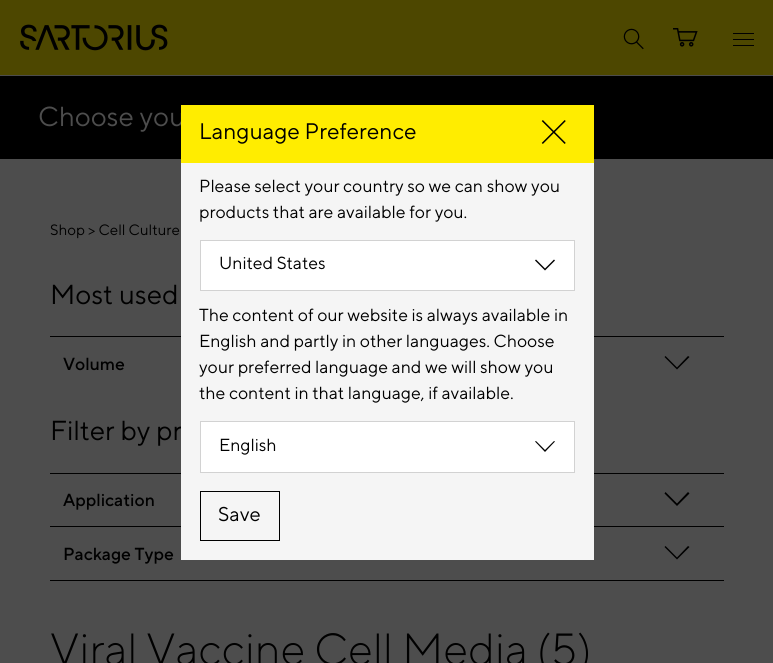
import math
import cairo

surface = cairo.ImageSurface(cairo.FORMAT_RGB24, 773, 663)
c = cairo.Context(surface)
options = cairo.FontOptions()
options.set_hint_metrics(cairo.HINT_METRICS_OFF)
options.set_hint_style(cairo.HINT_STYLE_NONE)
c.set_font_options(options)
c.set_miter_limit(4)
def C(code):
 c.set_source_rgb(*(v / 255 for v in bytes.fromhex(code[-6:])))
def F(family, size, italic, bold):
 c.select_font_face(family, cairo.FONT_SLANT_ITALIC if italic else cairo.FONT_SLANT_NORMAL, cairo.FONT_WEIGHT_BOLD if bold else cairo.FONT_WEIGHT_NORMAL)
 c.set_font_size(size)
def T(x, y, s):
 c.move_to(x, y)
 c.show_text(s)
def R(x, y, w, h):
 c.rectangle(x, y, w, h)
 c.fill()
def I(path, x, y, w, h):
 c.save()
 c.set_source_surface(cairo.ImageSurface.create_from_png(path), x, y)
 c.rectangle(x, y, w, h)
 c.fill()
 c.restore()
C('4d4d4d')
c.paint()
C('4d4700')
R(0,0,773,75)
I('1.png',20,24,148,27)
I('2.png',623,28,21,22)
I('3.png',673,28,25,19)
C('000000')
R(733,33,21,1)
R(733,39,21,1)
R(733,45,21,1)
R(0,76,773,83)
F('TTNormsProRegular',27.5,0,0)
C('4d4d4d')
T(38,126,'Choose you')
F('TTNormsProRegular',15,0,0)
C('000000')
T(50,235,'Shop > Cell Culture')
F('TTNormsProRegular',27.5,0,0)
T(50,304,'Most used')
R(50,336,674,1)
F('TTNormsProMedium',17.5,0,0)
T(63,370,'Volume')
c.new_path()
c.move_to(677,369.5)
c.line_to(664.5,357)
c.line_to(665.5,356)
c.line_to(677,367.5)
c.line_to(688,356)
c.line_to(689.5,357)
c.close_path()
c.fill()
F('TTNormsProRegular',27.5,0,0)
T(50,440,'Filter by pr')
R(50,473,674,1)
F('TTNormsProMedium',17.5,0,0)
T(63,506,'Application')
c.new_path()
c.move_to(677,506)
c.line_to(664.5,493.5)
c.line_to(665.5,492)
c.line_to(677,503.5)
c.line_to(688,492)
c.line_to(689.5,493.5)
c.close_path()
c.fill()
R(50,580,674,1)
R(50,526,674,1)
T(63,560,'Package Type')
c.new_path()
c.move_to(677,559.5)
c.line_to(664.5,547)
c.line_to(665.5,546)
c.line_to(677,557.5)
c.line_to(688,546)
c.line_to(689.5,547)
c.close_path()
c.fill()
F('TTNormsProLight',45,0,0)
T(50,665,'Viral Vaccine Cell Media (5)')
C('f5f5f5')
R(181,163,413,397)
C('ffed00')
R(181,105,413,58)
F('TTNormsProRegular',22.5,0,0)
C('000000')
T(199,139,'Language Preference')
I('4.png',541,120,25,24)
F('TTNormsProRegular',17.5,0,0)
T(199,192,'Please select your country so we can show you')
T(199,218,'products that are available for you.')
C('ffffff')
c.rectangle(200.5,240.5,374,50)
c.fill_preserve()
C('d2d2d2')
c.set_line_width(1)
c.stroke()
C('000000')
T(219,269,'United States')
c.new_path()
c.move_to(545,270.5)
c.line_to(535,260.5)
c.line_to(536,259.5)
c.line_to(545,268.5)
c.line_to(554,259.5)
c.line_to(555,260.5)
c.close_path()
c.fill()
T(199,321,'The content of our website is always available in')
T(199,347,'English and partly in other languages. Choose')
T(199,373,'your preferred language and we will show you')
T(199,399,'the content in that language, if available.')
C('ffffff')
c.rectangle(200.5,421.5,374,51)
c.fill_preserve()
C('d2d2d2')
c.stroke()
C('000000')
T(219,451,'English')
c.new_path()
c.move_to(545,452)
c.line_to(535,441.5)
c.line_to(536,441)
c.line_to(545,450)
c.line_to(554,441)
c.line_to(555,441.5)
c.close_path()
c.fill()
c.rectangle(200.5,491.5,79,49)
c.stroke()
F('TTNormsProRegular',20,0,0)
T(218,521,'Save')
surface.write_to_png('o.png')
